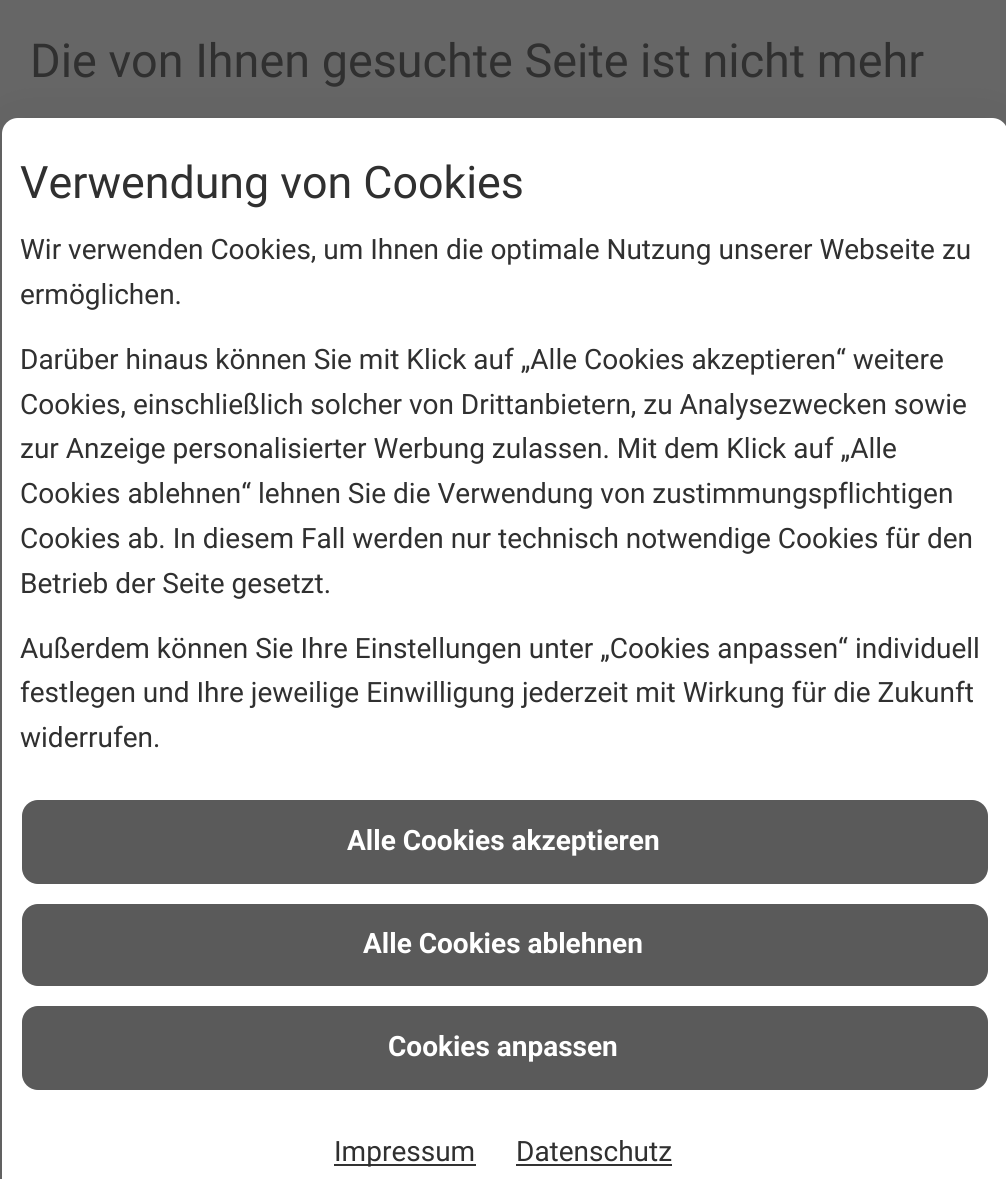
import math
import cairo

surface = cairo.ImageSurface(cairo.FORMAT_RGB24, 1006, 1179)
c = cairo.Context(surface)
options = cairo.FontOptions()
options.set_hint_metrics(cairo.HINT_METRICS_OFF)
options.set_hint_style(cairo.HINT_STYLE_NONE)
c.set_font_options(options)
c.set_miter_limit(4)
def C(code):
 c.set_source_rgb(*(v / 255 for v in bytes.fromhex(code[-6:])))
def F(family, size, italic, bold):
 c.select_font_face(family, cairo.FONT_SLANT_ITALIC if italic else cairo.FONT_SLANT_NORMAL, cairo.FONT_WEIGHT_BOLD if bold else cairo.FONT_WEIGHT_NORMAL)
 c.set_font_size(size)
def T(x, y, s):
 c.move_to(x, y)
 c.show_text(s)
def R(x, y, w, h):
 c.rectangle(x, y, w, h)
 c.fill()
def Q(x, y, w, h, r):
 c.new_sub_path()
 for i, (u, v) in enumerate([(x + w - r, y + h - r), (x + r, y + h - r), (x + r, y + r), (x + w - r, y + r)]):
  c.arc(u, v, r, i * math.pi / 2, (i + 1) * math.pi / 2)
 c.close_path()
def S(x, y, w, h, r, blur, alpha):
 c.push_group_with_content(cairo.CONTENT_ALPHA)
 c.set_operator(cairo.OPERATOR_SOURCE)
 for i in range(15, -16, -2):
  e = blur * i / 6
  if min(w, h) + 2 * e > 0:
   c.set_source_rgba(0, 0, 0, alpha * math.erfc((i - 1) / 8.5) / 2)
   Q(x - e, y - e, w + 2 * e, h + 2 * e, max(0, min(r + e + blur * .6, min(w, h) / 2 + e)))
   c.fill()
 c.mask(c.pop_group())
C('666666')
c.paint()
F('Roboto',46.75,0,0)
C('303030')
T(30,77,'Die von Ihnen gesuchte Seite ist nicht mehr')
C('000000')
S(2,130,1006,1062,16,28,.1)
C('ffffff')
c.new_path()
c.move_to(18,118)
c.line_to(992,118)
c.curve_to(1001,118,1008,125,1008,134)
c.line_to(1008,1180)
c.line_to(2,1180)
c.line_to(2,134)
c.curve_to(2,125,9,118,18,118)
c.close_path()
c.fill()
F('Roboto',44.75,0,0)
C('303030')
T(20,198,'Verwendung von Cookies')
F('Roboto',28,0,0)
T(20,259,'Wir verwenden Cookies, um Ihnen die optimale Nutzung unserer Webseite zu')
T(20,304,'ermöglichen.')
T(20,369,'Darüber hinaus können Sie mit Klick auf „Alle Cookies akzeptieren“ weitere')
T(20,414,'Cookies, einschließlich solcher von Drittanbietern, zu Analysezwecken sowie')
T(20,458,'zur Anzeige personalisierter Werbung zulassen. Mit dem Klick auf „Alle')
T(20,503,'Cookies ablehnen“ lehnen Sie die Verwendung von zustimmungspflichtigen')
T(20,548,'Cookies ab. In diesem Fall werden nur technisch notwendige Cookies für den')
T(20,593,'Betrieb der Seite gesetzt.')
T(20,658,'Außerdem können Sie Ihre Einstellungen unter „Cookies anpassen“ individuell')
T(20,702,'festlegen und Ihre jeweilige Einwilligung jederzeit mit Wirkung für die Zukunft')
T(20,747,'widerrufen.')
C('5a5a5a')
Q(23,801,964,82,15)
c.fill_preserve()
c.stroke()
F('Roboto',28,0,1)
C('ffffff')
T(347,850,'Alle Cookies akzeptieren')
C('5a5a5a')
Q(23,905,964,80,15)
c.fill_preserve()
c.stroke()
C('ffffff')
T(363,953,'Alle Cookies ablehnen')
C('5a5a5a')
Q(23,1007,964,82,15)
c.fill_preserve()
c.stroke()
C('ffffff')
T(388,1056,'Cookies anpassen')
C('333333')
R(334,1164,142,2)
F('Roboto',28,0,0)
C('303030')
T(334,1161,'Impressum')
T(516,1161,'Datenschutz')
C('333333')
R(516,1164,156,2)
surface.write_to_png('o.png')
